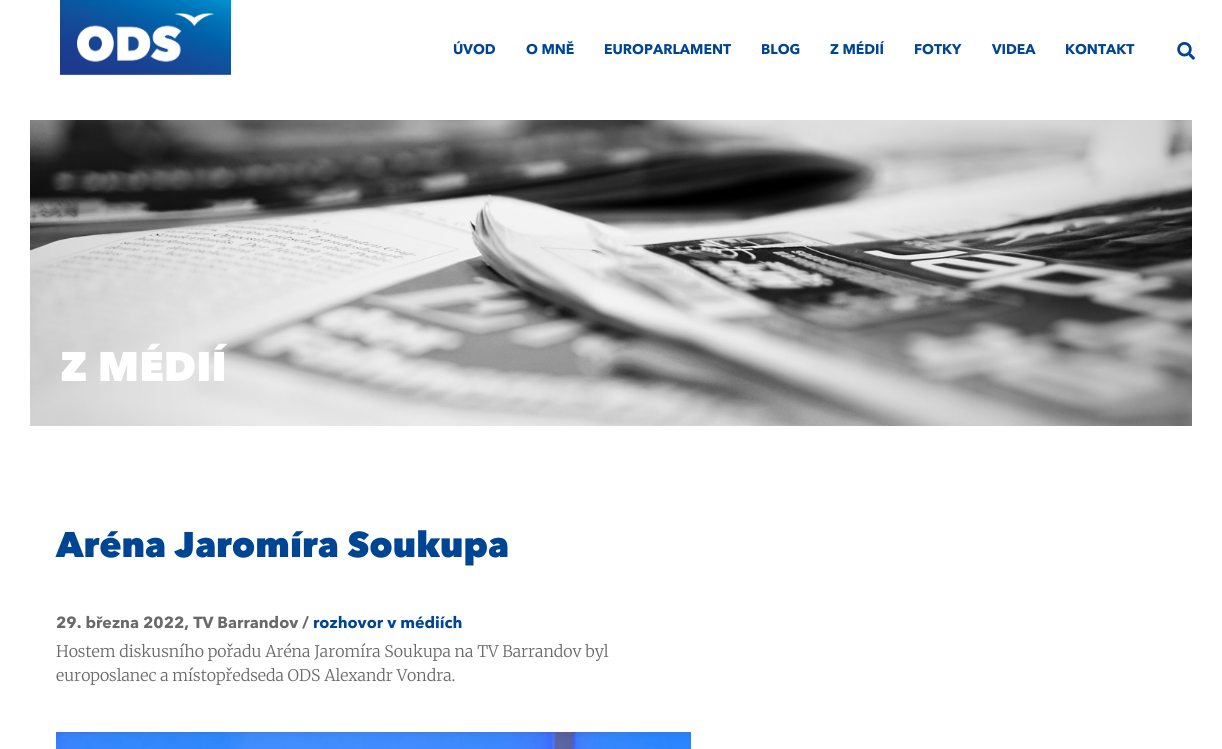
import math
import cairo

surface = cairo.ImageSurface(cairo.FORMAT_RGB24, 1222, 749)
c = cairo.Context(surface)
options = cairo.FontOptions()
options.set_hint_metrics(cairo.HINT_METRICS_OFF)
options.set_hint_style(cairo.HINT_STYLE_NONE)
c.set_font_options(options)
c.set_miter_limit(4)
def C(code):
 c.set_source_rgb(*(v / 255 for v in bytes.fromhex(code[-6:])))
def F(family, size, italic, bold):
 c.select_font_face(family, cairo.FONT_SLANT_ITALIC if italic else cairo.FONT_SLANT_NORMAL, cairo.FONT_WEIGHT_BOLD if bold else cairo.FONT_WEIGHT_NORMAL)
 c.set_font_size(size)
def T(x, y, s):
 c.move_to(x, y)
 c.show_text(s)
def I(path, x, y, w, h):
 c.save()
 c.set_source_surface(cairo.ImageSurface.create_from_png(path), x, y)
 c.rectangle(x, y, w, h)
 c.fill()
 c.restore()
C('ffffff')
c.paint()
I('1.png',60,0,171,75)
F('Avenir Next',14,0,1)
C('004494')
T(453,54,'ÚVOD')
T(526,54,'O MNĚ')
T(604,54,'EUROPARLAMENT')
T(761,54,'BLOG')
T(830,54,'Z MÉDIÍ')
T(914,54,'FOTKY')
T(992,54,'VIDEA')
T(1065,54,'KONTAKT')
I('2.png',1177,42,18,18)
I('3.png',30,120,1162,306)
F('Avenir Next Black',41,0,0)
C('ffffff')
T(60,381,'Z MÉDIÍ')
F('Avenir Next Black',35.4,0,0)
C('004494')
T(56,557,'Aréna Jaromíra Soukupa')
F('Avenir Next',16,0,1)
C('696969')
T(56,628,'29. března 2022, TV Barrandov /')
C('004494')
T(313,628,'rozhovor v médiích')
F('Merriweather Light',16,0,0)
C('696969')
T(56,657,'Hostem diskusního pořadu Aréna Jaromíra Soukupa na TV Barrandov byl')
T(56,681,'europoslanec a místopředseda ODS Alexandr Vondra.')
I('4.png',56,732,635,17)
surface.write_to_png('o.png')
